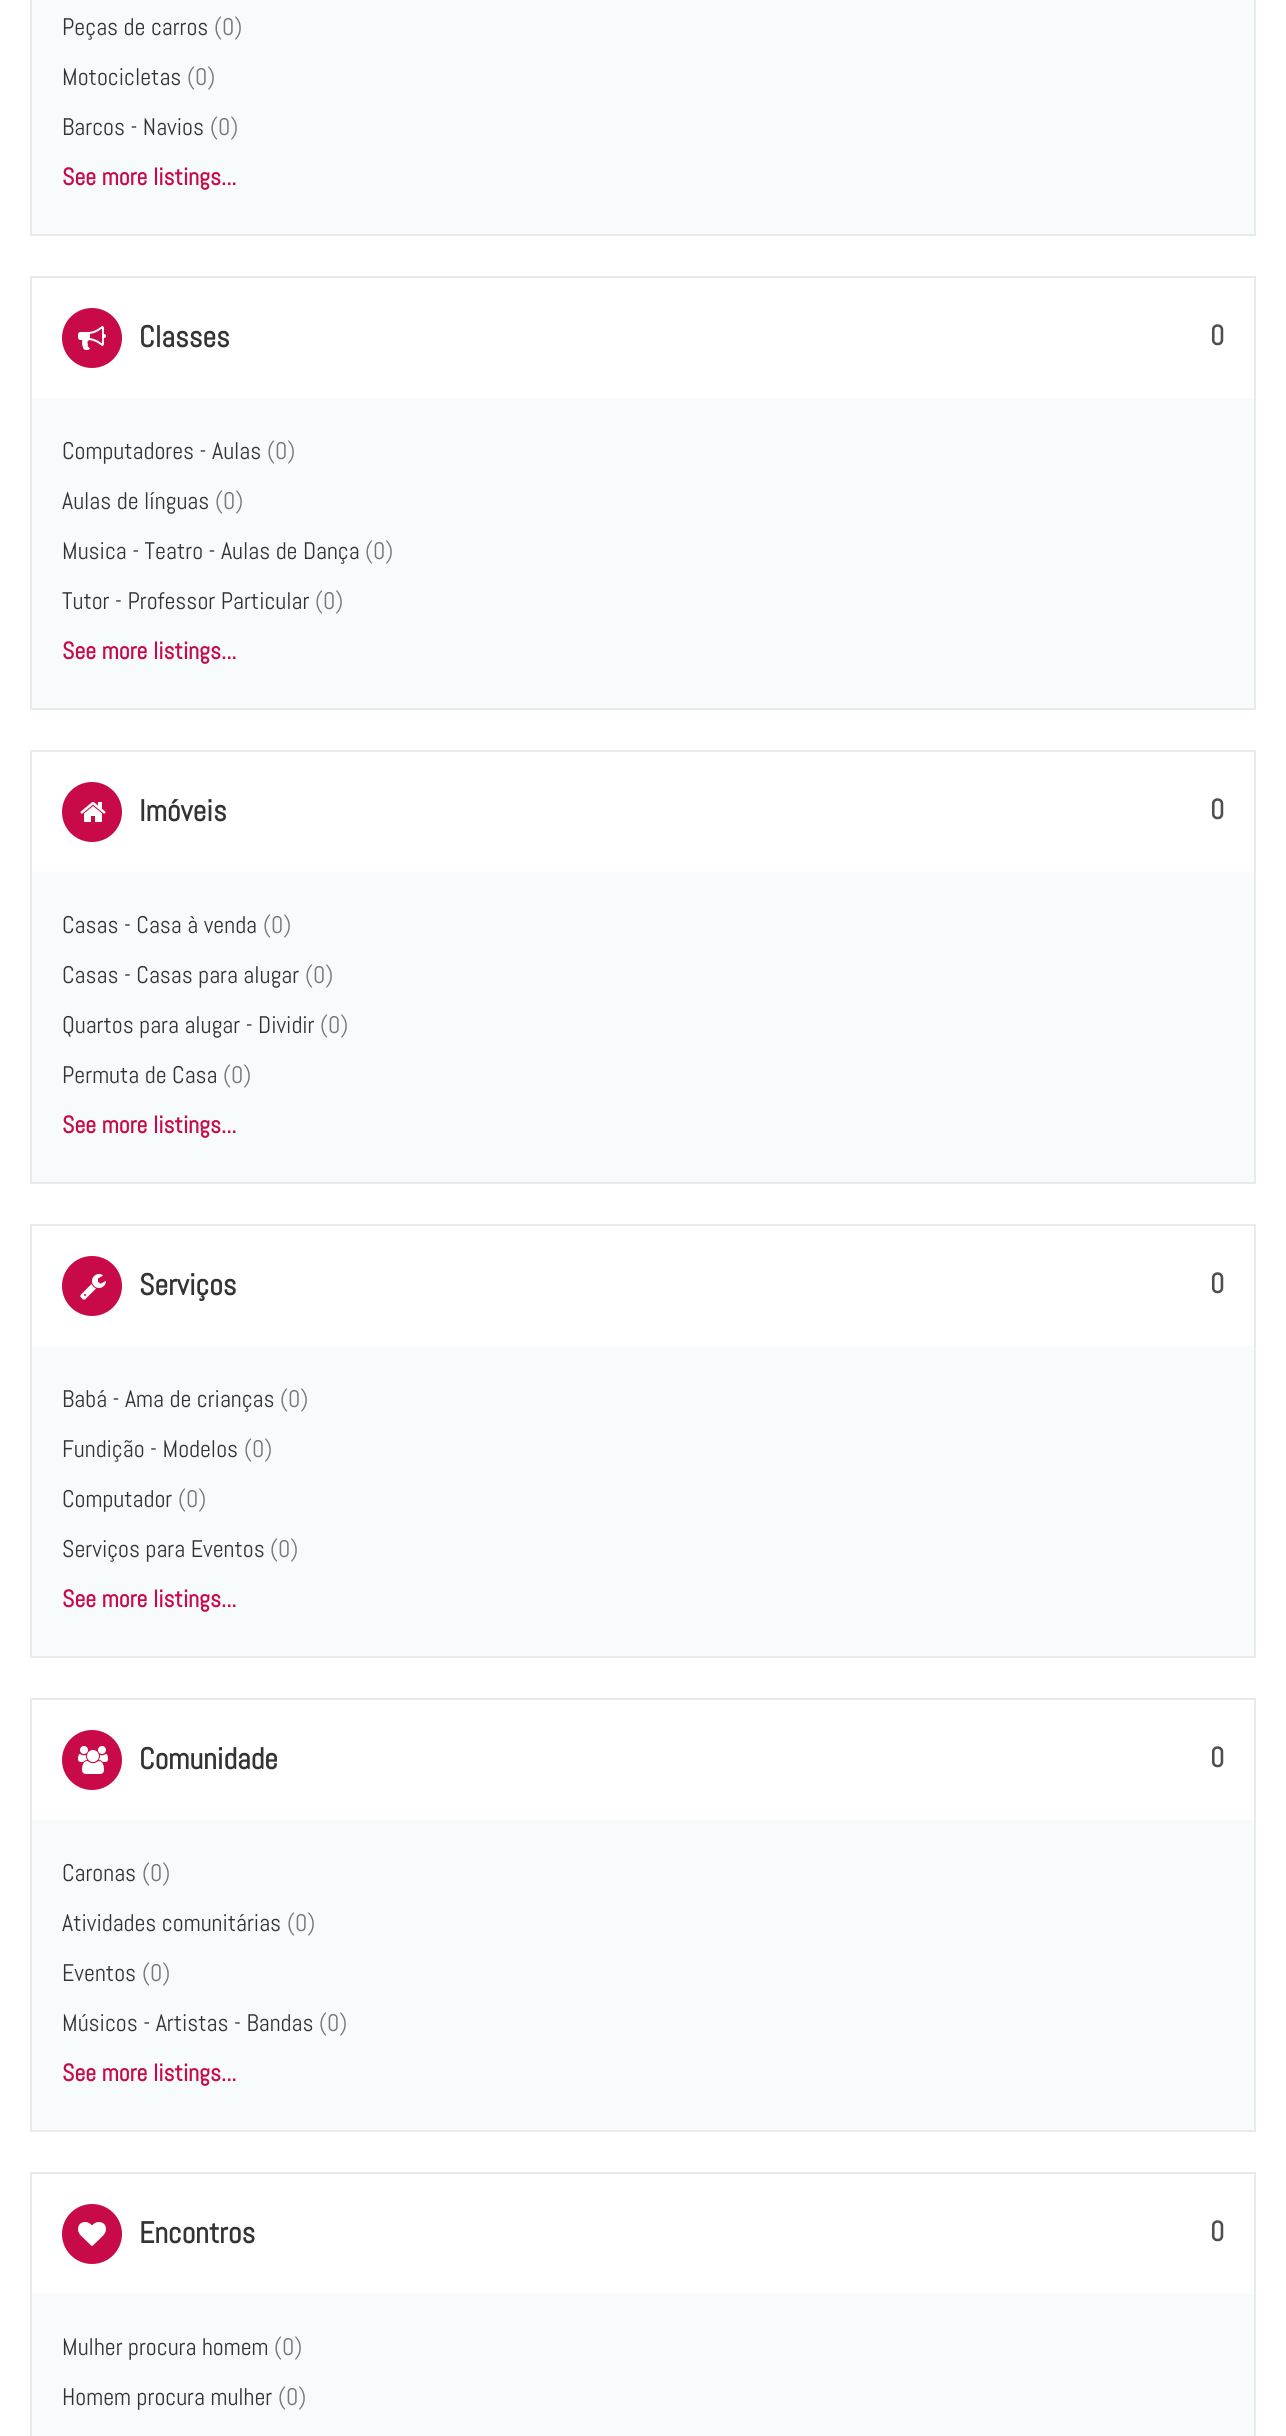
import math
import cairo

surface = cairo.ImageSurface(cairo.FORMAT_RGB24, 1286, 2436)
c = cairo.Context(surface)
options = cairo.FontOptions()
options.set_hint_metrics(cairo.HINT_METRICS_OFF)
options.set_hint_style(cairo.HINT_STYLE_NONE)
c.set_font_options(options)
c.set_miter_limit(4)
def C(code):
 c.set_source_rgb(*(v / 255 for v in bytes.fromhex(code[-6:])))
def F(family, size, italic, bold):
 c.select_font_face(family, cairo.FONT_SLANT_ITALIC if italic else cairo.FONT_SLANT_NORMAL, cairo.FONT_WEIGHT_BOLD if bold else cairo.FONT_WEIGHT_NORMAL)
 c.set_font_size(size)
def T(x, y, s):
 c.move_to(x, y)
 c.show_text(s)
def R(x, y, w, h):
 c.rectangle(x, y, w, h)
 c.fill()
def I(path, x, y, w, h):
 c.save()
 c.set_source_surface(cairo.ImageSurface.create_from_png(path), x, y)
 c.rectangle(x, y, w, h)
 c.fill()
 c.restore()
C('ffffff')
c.paint()
C('f8fbfc')
c.rectangle(31,-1,1224,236)
c.fill_preserve()
C('eaeaea')
c.stroke()
F('Abel',24,0,0)
C('333333')
T(62,35,'Peças de carros')
C('777777')
T(214,35,'(0)')
C('333333')
T(62,85,'Motocicletas')
C('777777')
T(187,85,'(0)')
C('333333')
T(62,135,'Barcos - Navios')
C('777777')
T(210,135,'(0)')
F('Abel',24,0,1)
C('c80a48')
T(62,185,'See more listings...')
C('f8fbfc')
R(32,398,1222,310)
c.rectangle(31,277,1224,432)
C('eaeaea')
c.stroke()
C('c80a48')
c.arc(92,338,30,0,2 * math.pi)
c.fill()
I('1.png',78,326,28,24)
F('Abel',30,0,1)
C('333333')
T(139,347,'Classes')
F('Abel',28,0,1)
C('4f4f4f')
T(1210,345,'0')
F('Abel',24,0,0)
C('333333')
T(62,459,'Computadores - Aulas')
C('777777')
T(267,459,'(0)')
C('333333')
T(62,509,'Aulas de línguas')
C('777777')
T(215,509,'(0)')
C('333333')
T(62,559,'Musica - Teatro - Aulas de Dança')
C('777777')
T(365,559,'(0)')
C('333333')
T(62,609,'Tutor - Professor Particular')
C('777777')
T(315,609,'(0)')
F('Abel',24,0,1)
C('c80a48')
T(62,659,'See more listings...')
C('f8fbfc')
R(32,872,1222,310)
c.rectangle(31,751,1224,432)
C('eaeaea')
c.stroke()
C('c80a48')
c.arc(92,812,30,0,2 * math.pi)
c.fill()
I('2.png',80,802,26,20)
F('Abel',30,0,1)
C('333333')
T(139,821,'Imóveis')
F('Abel',28,0,1)
C('4f4f4f')
T(1210,819,'0')
F('Abel',24,0,0)
C('333333')
T(62,933,'Casas - Casa à venda')
C('777777')
T(263,933,'(0)')
C('333333')
T(62,983,'Casas - Casas para alugar')
C('777777')
T(305,983,'(0)')
C('333333')
T(62,1033,'Quartos para alugar - Dividir')
C('777777')
T(320,1033,'(0)')
C('333333')
T(62,1083,'Permuta de Casa')
C('777777')
T(223,1083,'(0)')
F('Abel',24,0,1)
C('c80a48')
T(62,1133,'See more listings...')
C('f8fbfc')
R(32,1346,1222,310)
c.rectangle(31,1225,1224,432)
C('eaeaea')
c.stroke()
C('c80a48')
c.arc(92,1286,30,0,2 * math.pi)
c.fill()
I('3.png',80,1274,26,26)
F('Abel',30,0,1)
C('333333')
T(139,1295,'Serviços')
F('Abel',28,0,1)
C('4f4f4f')
T(1210,1293,'0')
F('Abel',24,0,0)
C('333333')
T(62,1407,'Babá - Ama de crianças')
C('777777')
T(280,1407,'(0)')
C('333333')
T(62,1457,'Fundição - Modelos')
C('777777')
T(244,1457,'(0)')
C('333333')
T(62,1507,'Computador')
C('777777')
T(178,1507,'(0)')
C('333333')
T(62,1557,'Serviços para Eventos')
C('777777')
T(270,1557,'(0)')
F('Abel',24,0,1)
C('c80a48')
T(62,1607,'See more listings...')
C('f8fbfc')
R(32,1820,1222,310)
c.rectangle(31,1699,1224,432)
C('eaeaea')
c.stroke()
C('c80a48')
c.arc(92,1760,30,0,2 * math.pi)
c.fill()
I('4.png',78,1746,30,28)
F('Abel',30,0,1)
C('333333')
T(139,1769,'Comunidade')
F('Abel',28,0,1)
C('4f4f4f')
T(1210,1767,'0')
F('Abel',24,0,0)
C('333333')
T(62,1881,'Caronas')
C('777777')
T(142,1881,'(0)')
C('333333')
T(62,1931,'Atividades comunitárias')
C('777777')
T(287,1931,'(0)')
C('333333')
T(62,1981,'Eventos')
C('777777')
T(142,1981,'(0)')
C('333333')
T(62,2031,'Músicos - Artistas - Bandas')
C('777777')
T(319,2031,'(0)')
F('Abel',24,0,1)
C('c80a48')
T(62,2081,'See more listings...')
C('f8fbfc')
R(32,2294,1222,142)
c.rectangle(31,2173,1224,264)
C('eaeaea')
c.stroke()
C('c80a48')
c.arc(92,2234,30,0,2 * math.pi)
c.fill()
I('5.png',78,2222,28,24)
F('Abel',30,0,1)
C('333333')
T(139,2243,'Encontros')
F('Abel',28,0,1)
C('4f4f4f')
T(1210,2241,'0')
F('Abel',24,0,0)
C('333333')
T(62,2355,'Mulher procura homem')
C('777777')
T(274,2355,'(0)')
C('333333')
T(62,2405,'Homem procura mulher')
C('777777')
T(278,2405,'(0)')
surface.write_to_png('o.png')
